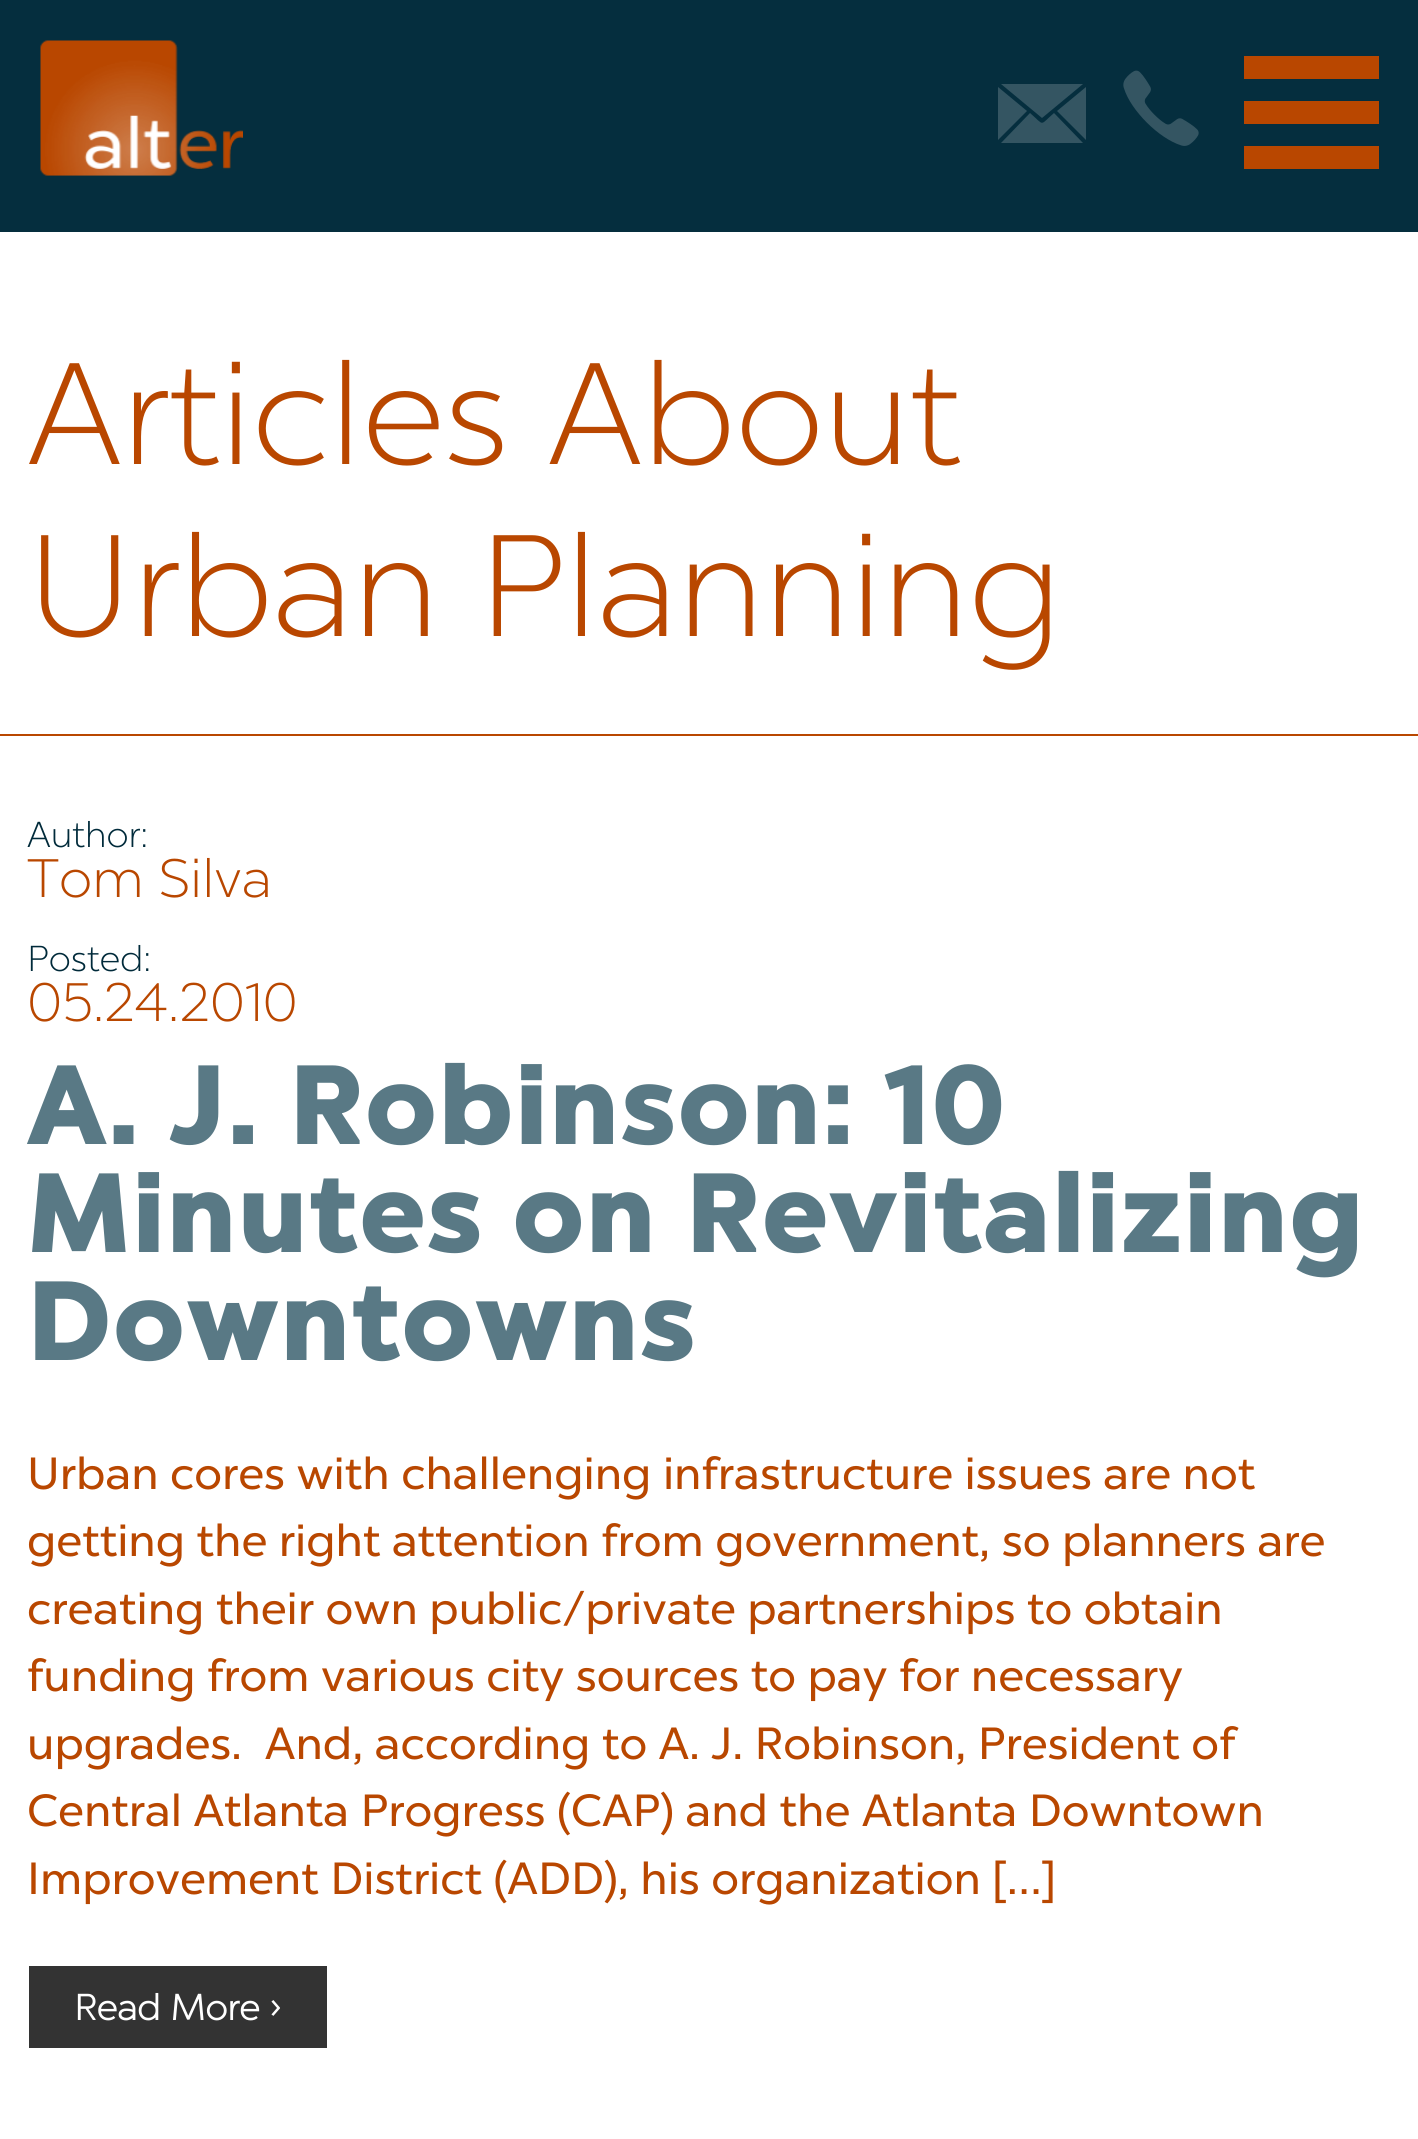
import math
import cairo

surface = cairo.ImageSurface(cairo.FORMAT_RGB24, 1418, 2139)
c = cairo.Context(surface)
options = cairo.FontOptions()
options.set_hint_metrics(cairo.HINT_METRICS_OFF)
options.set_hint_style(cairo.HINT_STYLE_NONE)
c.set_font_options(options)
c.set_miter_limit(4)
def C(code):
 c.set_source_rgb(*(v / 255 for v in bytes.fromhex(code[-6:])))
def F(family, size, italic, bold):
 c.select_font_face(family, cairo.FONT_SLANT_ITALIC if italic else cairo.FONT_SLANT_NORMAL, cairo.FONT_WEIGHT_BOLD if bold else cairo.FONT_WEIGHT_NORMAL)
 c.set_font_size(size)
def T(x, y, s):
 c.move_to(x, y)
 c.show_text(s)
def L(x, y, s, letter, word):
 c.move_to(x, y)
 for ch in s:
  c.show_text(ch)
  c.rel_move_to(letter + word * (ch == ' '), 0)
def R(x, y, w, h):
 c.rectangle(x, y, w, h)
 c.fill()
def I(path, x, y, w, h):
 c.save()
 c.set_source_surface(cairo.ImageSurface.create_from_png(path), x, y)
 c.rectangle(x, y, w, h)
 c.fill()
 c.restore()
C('ffffff')
c.paint()
C('052e3e')
R(0,0,1418,232)
I('1.png',40,40,203,136)
C('345562')
c.new_path()
c.move_to(1042,118)
c.line_to(1083,84)
c.line_to(1001,84)
c.close_path()
c.move_to(1086,88)
c.line_to(1086,87)
c.line_to(1057,111)
c.line_to(1086,140)
c.close_path()
c.move_to(998,87)
c.line_to(998,140)
c.line_to(1027,111)
c.close_path()
c.move_to(1054,113)
c.curve_to(1039,126,1045,126,1030,113)
c.line_to(1001,143)
c.line_to(1083,143)
c.close_path()
c.fill()
I('2.png',1123,70,76,76)
C('b94700')
R(1244,146,135,23)
R(1244,56,135,23)
R(1244,101,135,23)
R(0,734,1418,2)
F('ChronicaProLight',144,0,0)
T(27,464,'Articles About')
T(27,636,'Urban Planning')
F('ChronicaProLight',36,0,0)
C('002a3a')
T(27,847,'Author:')
F('ChronicaProLight',54,0,0)
C('b94700')
T(27,897,'Tom Silva')
F('ChronicaProLight',36,0,0)
C('002a3a')
T(27,971,'Posted:')
F('ChronicaProLight',54,0,0)
C('b94700')
T(27,1021,'05.24.2010')
F('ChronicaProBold',108,0,1)
C('597985')
L(27,1144,'A. J. Robinson: 10',4.5,0)
L(27,1252,'Minutes on Revitalizing',4.5,0)
L(27,1360,'Downtowns',4.5,0)
F('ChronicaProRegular',45,0,0)
C('b94700')
T(27,1489,'Urban cores with challenging infrastructure issues are not')
T(27,1556,'getting the right attention from government, so planners are')
T(27,1624,'creating their own public/private partnerships to obtain')
T(27,1691,'funding from various city sources to pay for necessary')
T(27,1759,'upgrades.  And, according to A. J. Robinson, President of')
T(27,1826,'Central Atlanta Progress (CAP) and the Atlanta Downtown')
T(27,1894,'Improvement District (ADD), his organization […]')
C('333333')
R(29,1966,298,82)
F('ChronicaProLight',36,0,1)
C('ffffff')
T(74,2020,'Read More ›')
surface.write_to_png('o.png')
